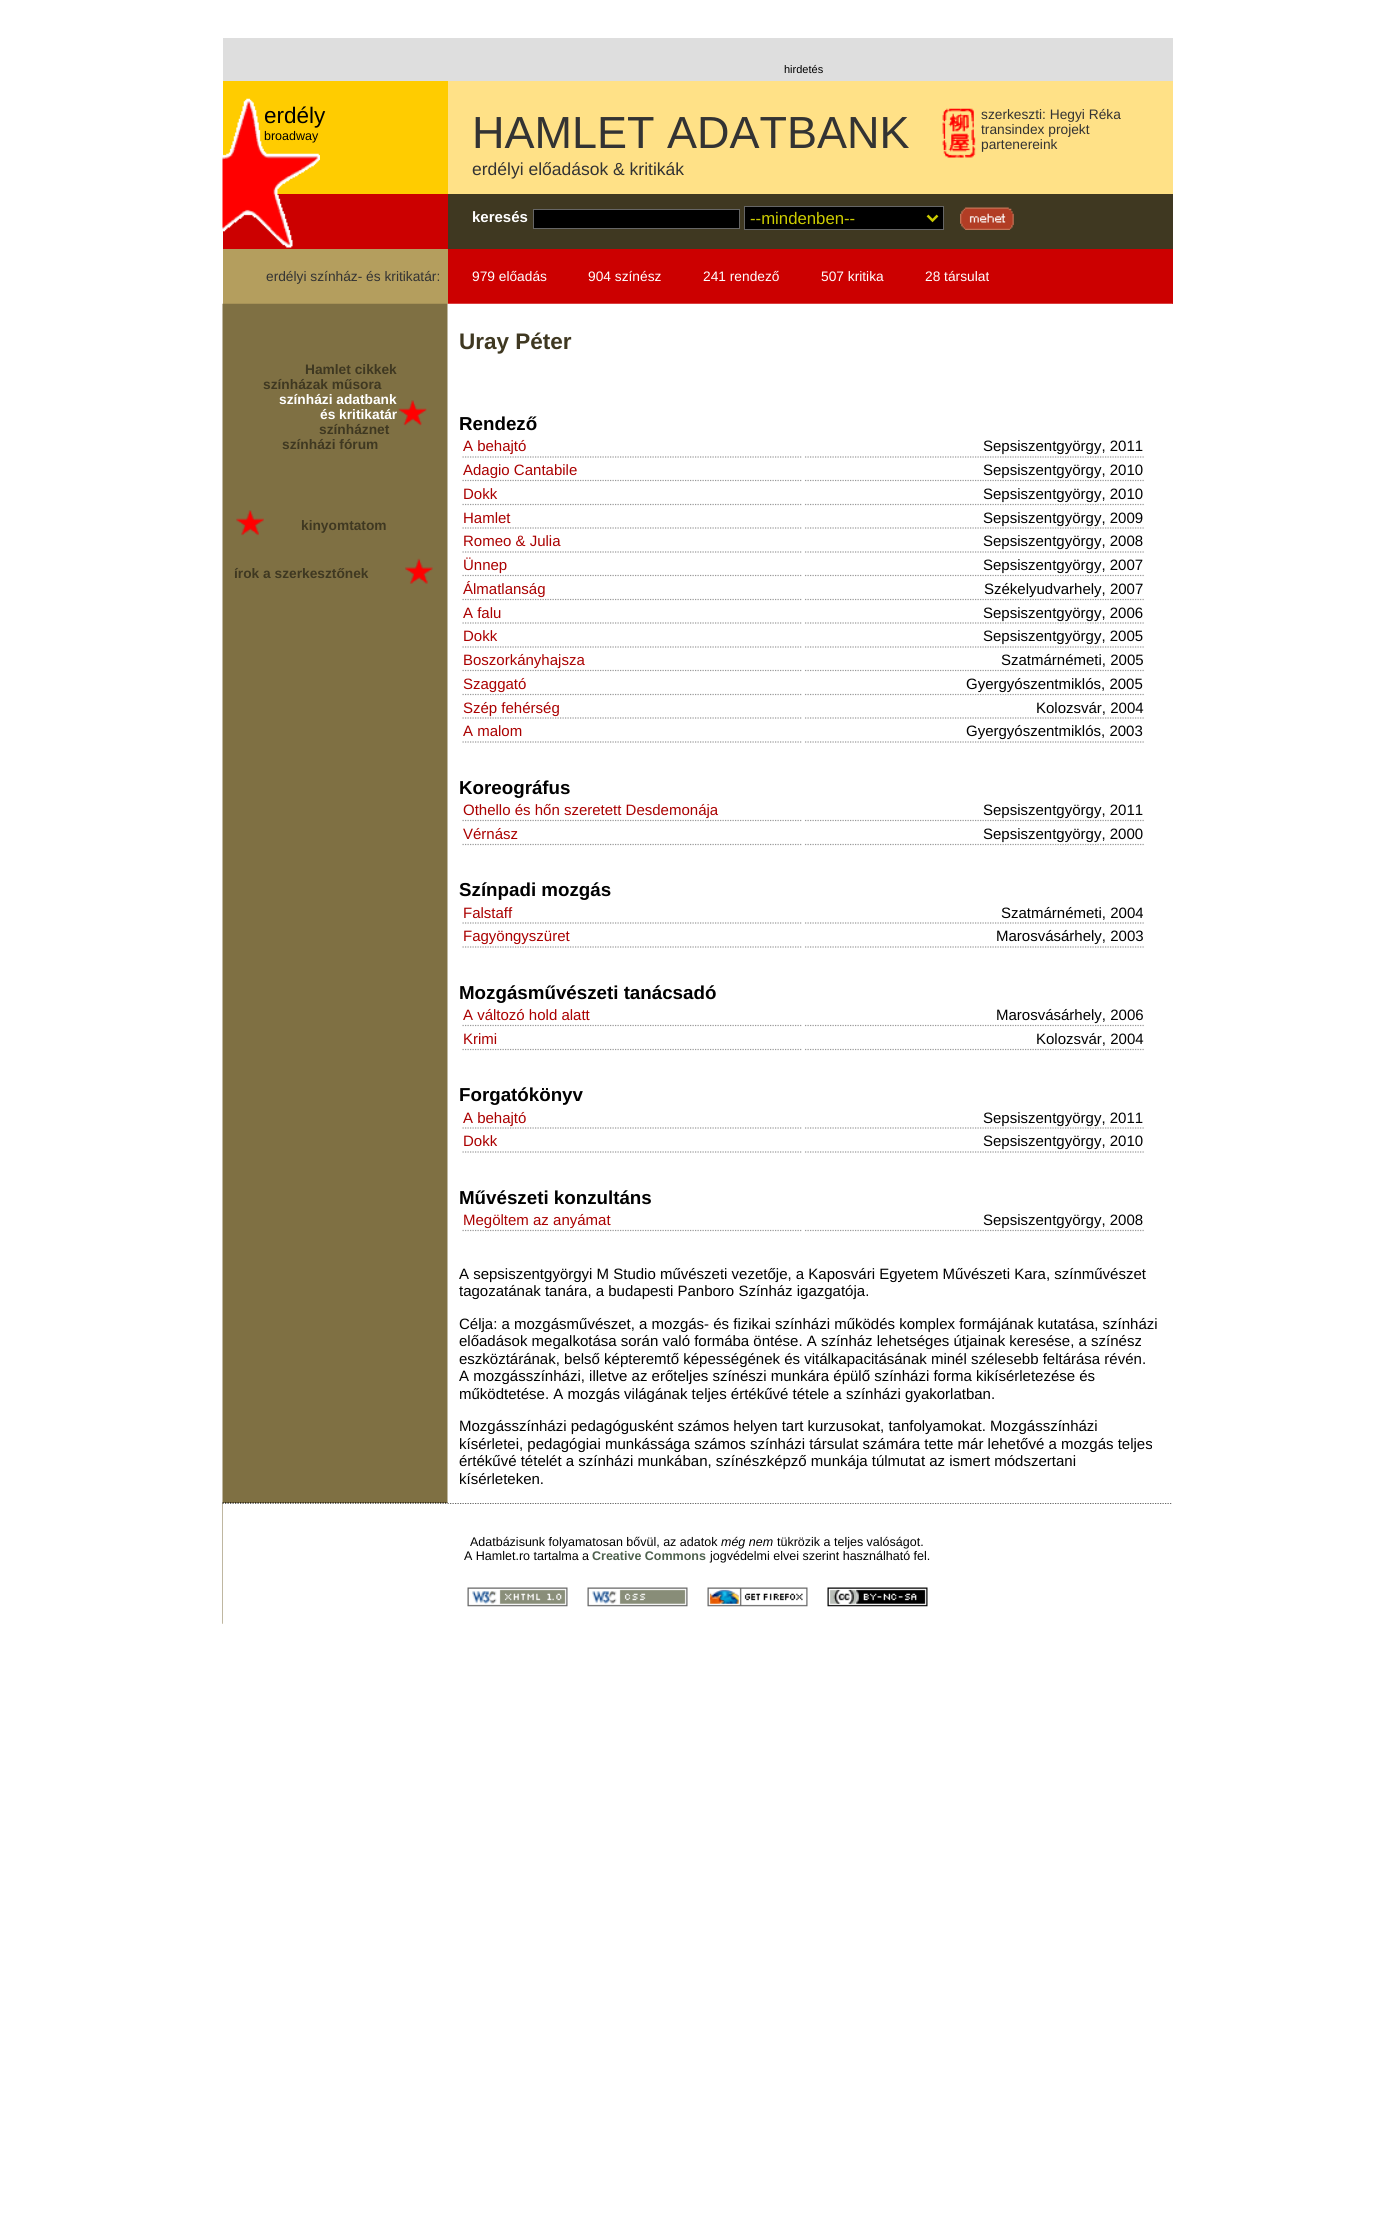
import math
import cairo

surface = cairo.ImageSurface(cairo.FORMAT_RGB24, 1393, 2236)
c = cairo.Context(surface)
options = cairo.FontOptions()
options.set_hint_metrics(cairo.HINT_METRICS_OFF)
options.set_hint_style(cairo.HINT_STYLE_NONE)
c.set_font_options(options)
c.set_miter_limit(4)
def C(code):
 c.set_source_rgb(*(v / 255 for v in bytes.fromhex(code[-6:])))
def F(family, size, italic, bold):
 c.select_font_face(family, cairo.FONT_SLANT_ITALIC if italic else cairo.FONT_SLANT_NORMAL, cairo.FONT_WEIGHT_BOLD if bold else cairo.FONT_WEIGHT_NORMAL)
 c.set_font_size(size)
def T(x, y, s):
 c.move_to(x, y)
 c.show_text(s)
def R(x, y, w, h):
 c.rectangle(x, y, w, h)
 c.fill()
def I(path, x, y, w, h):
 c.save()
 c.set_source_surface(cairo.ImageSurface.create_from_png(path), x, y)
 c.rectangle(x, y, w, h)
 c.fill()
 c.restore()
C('ffffff')
c.paint()
C('dedede')
R(223,38,950,43)
F('Liberation Sans',11,0,0)
C('000000')
T(784,73,'hirdetés')
C('ffe187')
R(448,81,725,113)
C('ffcc00')
R(223,81,225,113)
F('Liberation Sans',22.5,0,0)
C('000000')
T(264,123,'erdély')
F('Liberation Sans',12.5,0,0)
T(264,140,'broadway')
F('Liberation Sans',45,0,0)
C('333333')
T(472,148,'HAMLET ADATBANK')
I('1.png',942,108,34,50)
F('Liberation Sans',13.75,0,0)
T(981,119,'szerkeszti: Hegyi Réka')
T(981,134,'transindex projekt')
T(981,149,'partenereink')
F('Liberation Sans',17.5,0,0)
T(472,175,'erdélyi előadások & kritikák')
C('3f3821')
R(448,194,725,55)
C('cc0000')
R(223,194,225,55)
I('2.png',222,98,98,150)
F('Liberation Sans',15,0,1)
C('ffffff')
T(472,222,'keresés')
C('000000')
c.rectangle(533.5,209.5,206,19)
c.fill_preserve()
C('666666')
c.set_line_width(1)
c.stroke()
C('000000')
c.rectangle(744.5,206.5,199,23)
c.fill_preserve()
C('666666')
c.stroke()
c.new_path()
c.move_to(927.5,215.5)
c.line_to(932.5,220.5)
c.line_to(937.5,215.5)
C('cccc00')
c.set_line_width(2.5)
c.stroke()
F('Liberation Sans',16.75,0,0)
T(750,224,'--mindenben--')
I('3.png',960,207,54,23)
C('cc0000')
R(448,249,725,55)
C('b49e5e')
R(223,249,225,55)
F('Liberation Sans',13.75,0,0)
C('333333')
T(266,281,'erdélyi színház- és kritikatár:')
C('ffffff')
T(472,281,'979 előadás')
T(588,281,'904 színész')
T(703,281,'241 rendező')
T(821,281,'507 kritika')
T(925,281,'28 társulat')
I('4.png',222,303,951,1321)
F('Liberation Sans',13.75,0,1)
C('3f3821')
T(305,374,'Hamlet cikkek')
T(263,389,'színházak műsora')
C('ffffff')
T(279,404,'színházi adatbank')
T(320,419,'és kritikatár')
C('3f3821')
T(319,434,'színháznet')
T(282,449,'színházi fórum')
I('5.png',398,400,29,26)
I('6.png',236,510,28,26)
T(301,530,'kinyomtatom')
T(234,578,'írok a szerkesztőnek')
I('7.png',405,558,28,26)
C('ffffff')
R(223,1503,225,121)
c.new_path()
c.move_to(222.5,1503)
c.line_to(1172.5,1503)
C('000000')
c.set_line_width(1.2)
c.set_dash([1.25,1.25])
c.stroke()
C('ffffff')
R(448,1502,724,1)
F('Liberation Sans',22.5,0,1)
C('3f3821')
T(459,349,'Uray Péter')
F('Liberation Sans',18.75,0,1)
C('000000')
T(459,430,'Rendező')
c.new_path()
c.move_to(462.5,457)
c.line_to(802.5,457)
C('999999')
c.stroke()
F('Liberation Sans',15,0,0)
C('aa0000')
T(463,451,'A behajtó')
c.new_path()
c.move_to(805,457)
c.line_to(1145,457)
C('999999')
c.stroke()
C('000000')
T(983,451,'Sepsiszentgyörgy, 2011')
c.new_path()
c.move_to(462.5,480.5)
c.line_to(802.5,480.5)
C('999999')
c.stroke()
C('aa0000')
T(463,475,'Adagio Cantabile')
c.new_path()
c.move_to(805,480.5)
c.line_to(1145,480.5)
C('999999')
c.stroke()
C('000000')
T(983,475,'Sepsiszentgyörgy, 2010')
c.new_path()
c.move_to(462.5,504.5)
c.line_to(802.5,504.5)
C('999999')
c.stroke()
C('aa0000')
T(463,499,'Dokk')
c.new_path()
c.move_to(805,504.5)
c.line_to(1145,504.5)
C('999999')
c.stroke()
C('000000')
T(983,499,'Sepsiszentgyörgy, 2010')
c.new_path()
c.move_to(462.5,528)
c.line_to(802.5,528)
C('999999')
c.stroke()
C('aa0000')
T(463,523,'Hamlet')
c.new_path()
c.move_to(805,528)
c.line_to(1145,528)
C('999999')
c.stroke()
C('000000')
T(983,523,'Sepsiszentgyörgy, 2009')
c.new_path()
c.move_to(462.5,552)
c.line_to(802.5,552)
C('999999')
c.stroke()
C('aa0000')
T(463,546,'Romeo & Julia')
c.new_path()
c.move_to(805,552)
c.line_to(1145,552)
C('999999')
c.stroke()
C('000000')
T(983,546,'Sepsiszentgyörgy, 2008')
c.new_path()
c.move_to(462.5,575.5)
c.line_to(802.5,575.5)
C('999999')
c.stroke()
C('aa0000')
T(463,570,'Ünnep')
c.new_path()
c.move_to(805,575.5)
c.line_to(1145,575.5)
C('999999')
c.stroke()
C('000000')
T(983,570,'Sepsiszentgyörgy, 2007')
c.new_path()
c.move_to(462.5,599.5)
c.line_to(802.5,599.5)
C('999999')
c.stroke()
C('aa0000')
T(463,594,'Álmatlanság')
c.new_path()
c.move_to(805,599.5)
c.line_to(1145,599.5)
C('999999')
c.stroke()
C('000000')
T(984,594,'Székelyudvarhely, 2007')
c.new_path()
c.move_to(462.5,623)
c.line_to(802.5,623)
C('999999')
c.stroke()
C('aa0000')
T(463,618,'A falu')
c.new_path()
c.move_to(805,623)
c.line_to(1145,623)
C('999999')
c.stroke()
C('000000')
T(983,618,'Sepsiszentgyörgy, 2006')
c.new_path()
c.move_to(462.5,647)
c.line_to(802.5,647)
C('999999')
c.stroke()
C('aa0000')
T(463,641,'Dokk')
c.new_path()
c.move_to(805,647)
c.line_to(1145,647)
C('999999')
c.stroke()
C('000000')
T(983,641,'Sepsiszentgyörgy, 2005')
c.new_path()
c.move_to(462.5,670.5)
c.line_to(802.5,670.5)
C('999999')
c.stroke()
C('aa0000')
T(463,665,'Boszorkányhajsza')
c.new_path()
c.move_to(805,670.5)
c.line_to(1145,670.5)
C('999999')
c.stroke()
C('000000')
T(1001,665,'Szatmárnémeti, 2005')
c.new_path()
c.move_to(462.5,694.5)
c.line_to(802.5,694.5)
C('999999')
c.stroke()
C('aa0000')
T(463,689,'Szaggató')
c.new_path()
c.move_to(805,694.5)
c.line_to(1145,694.5)
C('999999')
c.stroke()
C('000000')
T(966,689,'Gyergyószentmiklós, 2005')
c.new_path()
c.move_to(462.5,718)
c.line_to(802.5,718)
C('999999')
c.stroke()
C('aa0000')
T(463,713,'Szép fehérség')
c.new_path()
c.move_to(805,718)
c.line_to(1145,718)
C('999999')
c.stroke()
C('000000')
T(1036,713,'Kolozsvár, 2004')
c.new_path()
c.move_to(462.5,742)
c.line_to(802.5,742)
C('999999')
c.stroke()
C('aa0000')
T(463,736,'A malom')
c.new_path()
c.move_to(805,742)
c.line_to(1145,742)
C('999999')
c.stroke()
C('000000')
T(966,736,'Gyergyószentmiklós, 2003')
F('Liberation Sans',18.75,0,1)
T(459,794,'Koreográfus')
c.new_path()
c.move_to(462.5,820.5)
c.line_to(802.5,820.5)
C('999999')
c.stroke()
F('Liberation Sans',15,0,0)
C('aa0000')
T(463,815,'Othello és hőn szeretett Desdemonája')
c.new_path()
c.move_to(805,820.5)
c.line_to(1145,820.5)
C('999999')
c.stroke()
C('000000')
T(983,815,'Sepsiszentgyörgy, 2011')
c.new_path()
c.move_to(462.5,844.5)
c.line_to(802.5,844.5)
C('999999')
c.stroke()
C('aa0000')
T(463,839,'Vérnász')
c.new_path()
c.move_to(805,844.5)
c.line_to(1145,844.5)
C('999999')
c.stroke()
C('000000')
T(983,839,'Sepsiszentgyörgy, 2000')
F('Liberation Sans',18.75,0,1)
T(459,896,'Színpadi mozgás')
c.new_path()
c.move_to(462.5,923)
c.line_to(802.5,923)
C('999999')
c.stroke()
F('Liberation Sans',15,0,0)
C('aa0000')
T(463,918,'Falstaff')
c.new_path()
c.move_to(805,923)
c.line_to(1145,923)
C('999999')
c.stroke()
C('000000')
T(1001,918,'Szatmárnémeti, 2004')
c.new_path()
c.move_to(462.5,947)
c.line_to(802.5,947)
C('999999')
c.stroke()
C('aa0000')
T(463,941,'Fagyöngyszüret')
c.new_path()
c.move_to(805,947)
c.line_to(1145,947)
C('999999')
c.stroke()
C('000000')
T(996,941,'Marosvásárhely, 2003')
F('Liberation Sans',18.75,0,1)
T(459,999,'Mozgásművészeti tanácsadó')
c.new_path()
c.move_to(462.5,1025.5)
c.line_to(802.5,1025.5)
C('999999')
c.stroke()
F('Liberation Sans',15,0,0)
C('aa0000')
T(463,1020,'A változó hold alatt')
c.new_path()
c.move_to(805,1025.5)
c.line_to(1145,1025.5)
C('999999')
c.stroke()
C('000000')
T(996,1020,'Marosvásárhely, 2006')
c.new_path()
c.move_to(462.5,1049.5)
c.line_to(802.5,1049.5)
C('999999')
c.stroke()
C('aa0000')
T(463,1044,'Krimi')
c.new_path()
c.move_to(805,1049.5)
c.line_to(1145,1049.5)
C('999999')
c.stroke()
C('000000')
T(1036,1044,'Kolozsvár, 2004')
F('Liberation Sans',18.75,0,1)
T(459,1101,'Forgatókönyv')
c.new_path()
c.move_to(462.5,1128)
c.line_to(802.5,1128)
C('999999')
c.stroke()
F('Liberation Sans',15,0,0)
C('aa0000')
T(463,1123,'A behajtó')
c.new_path()
c.move_to(805,1128)
c.line_to(1145,1128)
C('999999')
c.stroke()
C('000000')
T(983,1123,'Sepsiszentgyörgy, 2011')
c.new_path()
c.move_to(462.5,1152)
c.line_to(802.5,1152)
C('999999')
c.stroke()
C('aa0000')
T(463,1146,'Dokk')
c.new_path()
c.move_to(805,1152)
c.line_to(1145,1152)
C('999999')
c.stroke()
C('000000')
T(983,1146,'Sepsiszentgyörgy, 2010')
F('Liberation Sans',18.75,0,1)
T(459,1204,'Művészeti konzultáns')
c.new_path()
c.move_to(462.5,1230.5)
c.line_to(802.5,1230.5)
C('999999')
c.stroke()
F('Liberation Sans',15,0,0)
C('aa0000')
T(463,1225,'Megöltem az anyámat')
c.new_path()
c.move_to(805,1230.5)
c.line_to(1145,1230.5)
C('999999')
c.stroke()
C('000000')
T(983,1225,'Sepsiszentgyörgy, 2008')
T(459,1279,'A sepsiszentgyörgyi M Studio művészeti vezetője, a Kaposvári Egyetem Művészeti Kara, színművészet')
T(459,1296,'tagozatának tanára, a budapesti Panboro Színház igazgatója.')
T(459,1329,'Célja: a mozgásművészet, a mozgás- és fizikai színházi működés komplex formájának kutatása, színházi')
T(459,1346,'előadások megalkotása során való formába öntése. A színház lehetséges útjainak keresése, a színész')
T(459,1364,'eszköztárának, belső képteremtő képességének és vitálkapacitásának minél szélesebb feltárása révén.')
T(459,1381,'A mozgásszínházi, illetve az erőteljes színészi munkára épülő színházi forma kikísérletezése és')
T(459,1399,'működtetése. A mozgás világának teljes értékűvé tétele a színházi gyakorlatban.')
T(459,1431,'Mozgásszínházi pedagógusként számos helyen tart kurzusokat, tanfolyamokat. Mozgásszínházi')
T(459,1449,'kísérletei, pedagógiai munkássága számos színházi társulat számára tette már lehetővé a mozgás teljes')
T(459,1466,'értékűvé tételét a színházi munkában, színészképző munkája túlmutat az ismert módszertani')
T(459,1484,'kísérleteken.')
F('Liberation Sans',12.5,0,0)
T(470,1546,'Adatbázisunk folyamatosan bővül, az adatok')
F('Liberation Sans',12.5,1,0)
T(721,1546,'még nem')
F('Liberation Sans',12.5,0,0)
T(777,1546,'tükrözik a teljes valóságot.')
T(464,1560,'A Hamlet.ro tartalma a')
F('Liberation Sans',12.5,0,1)
C('4e614e')
T(592,1560,'Creative Commons')
F('Liberation Sans',12.5,0,0)
C('000000')
T(710,1560,'jogvédelmi elvei szerint használható fel.')
I('8.png',467,1587,101,20)
I('9.png',587,1587,101,20)
I('10.png',707,1587,101,20)
I('11.png',827,1587,101,20)
surface.write_to_png('o.png')
